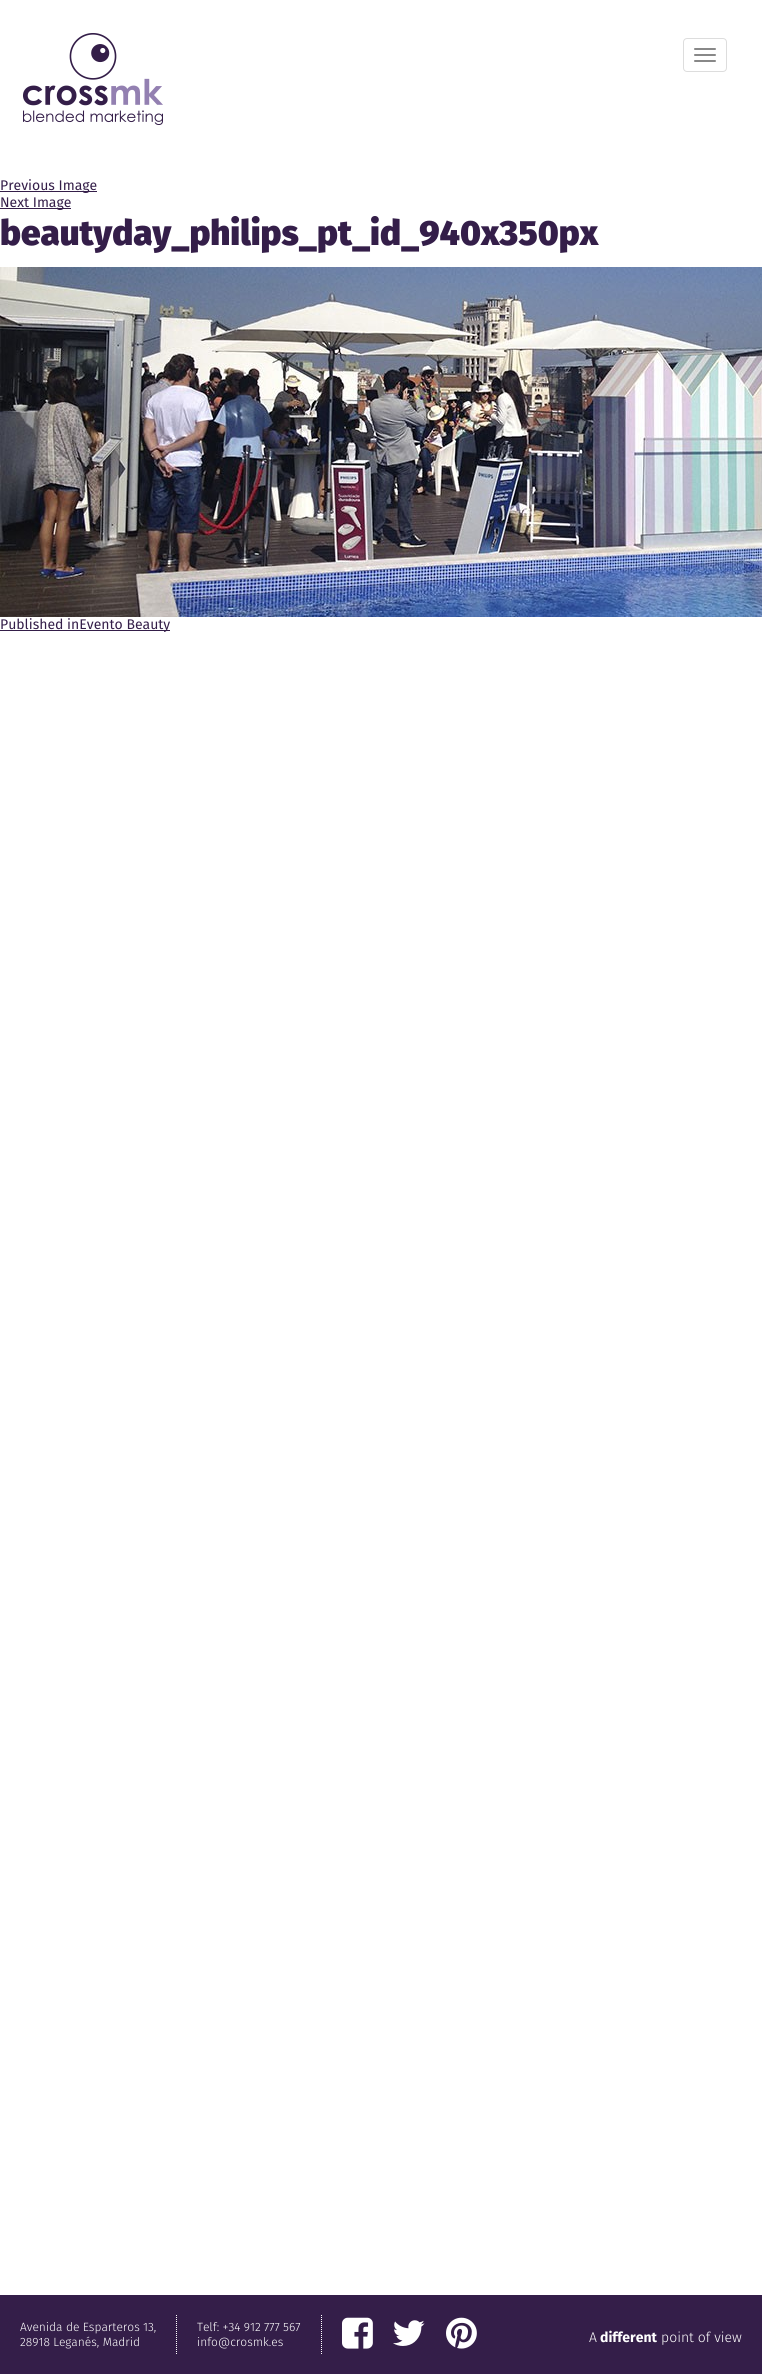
import math
import cairo

surface = cairo.ImageSurface(cairo.FORMAT_RGB24, 762, 2374)
c = cairo.Context(surface)
options = cairo.FontOptions()
options.set_hint_metrics(cairo.HINT_METRICS_OFF)
options.set_hint_style(cairo.HINT_STYLE_NONE)
c.set_font_options(options)
c.set_miter_limit(4)
def C(code):
 c.set_source_rgb(*(v / 255 for v in bytes.fromhex(code[-6:])))
def F(family, size, italic, bold):
 c.select_font_face(family, cairo.FONT_SLANT_ITALIC if italic else cairo.FONT_SLANT_NORMAL, cairo.FONT_WEIGHT_BOLD if bold else cairo.FONT_WEIGHT_NORMAL)
 c.set_font_size(size)
def T(x, y, s):
 c.move_to(x, y)
 c.show_text(s)
def R(x, y, w, h):
 c.rectangle(x, y, w, h)
 c.fill()
def Q(x, y, w, h, r):
 c.new_sub_path()
 for i, (u, v) in enumerate([(x + w - r, y + h - r), (x + r, y + h - r), (x + r, y + r), (x + w - r, y + r)]):
  c.arc(u, v, r, i * math.pi / 2, (i + 1) * math.pi / 2)
 c.close_path()
def I(path, x, y, w, h):
 c.save()
 c.set_source_surface(cairo.ImageSurface.create_from_png(path), x, y)
 c.rectangle(x, y, w, h)
 c.fill()
 c.restore()
C('ffffff')
c.paint()
I('1.png',23,33,140,92)
Q(683.5,38.5,43,33,3.5)
C('dddddd')
c.set_line_width(1)
c.stroke()
C('888888')
Q(694,48,22,2,1)
c.fill()
Q(694,54,22,2,1)
c.fill()
Q(694,60,22,2,1)
c.fill()
C('341e49')
R(0,191,97,1)
F('Fira Sans',14,0,0)
T(0,190,'Previous Image')
R(0,208,71,1)
T(0,207,'Next Image')
F('Fira Sans Black',35,0,0)
T(0,245,'beautyday_philips_pt_id_940x350px')
I('2.png',0,267,762,350)
R(0,630,170,1)
F('Fira Sans',14,0,0)
T(0,629,'Published inEvento Beauty')
R(0,2295,762,79)
c.new_path()
c.move_to(176.5,2315)
c.line_to(176.5,2354)
C('ffffff')
c.set_dash([1,1])
c.stroke()
F('Fira Sans Light',12,0,0)
T(20,2331,'Avenida de Esparteros 13,')
T(20,2346,'28918 Leganés, Madrid')
c.new_path()
c.move_to(321.5,2315)
c.line_to(321.5,2354)
c.stroke()
T(197,2331,'Telf: +34 912 777 567')
T(197,2346,'info@crosmk.es')
I('3.png',342,2317,31,32)
I('4.png',393,2320,32,26)
I('5.png',446,2317,31,32)
F('Fira Sans Light',14,0,0)
T(589,2342,'A')
F('Fira Sans',14,0,1)
T(600,2342,'different')
F('Fira Sans Light',14,0,0)
T(661,2342,'point of view')
surface.write_to_png('o.png')
